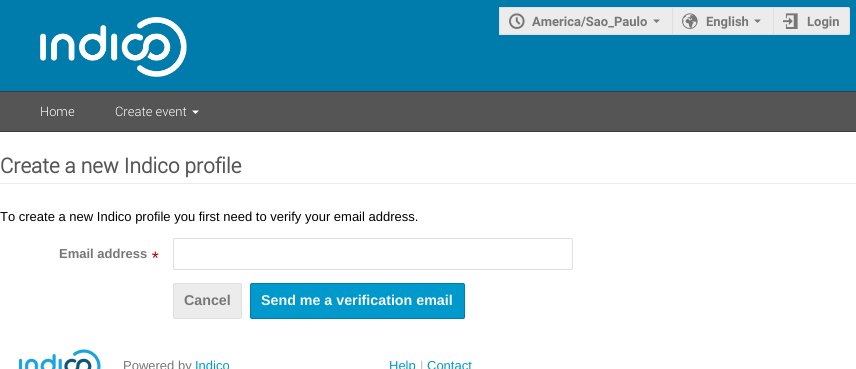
import math
import cairo

surface = cairo.ImageSurface(cairo.FORMAT_RGB24, 856, 369)
c = cairo.Context(surface)
options = cairo.FontOptions()
options.set_hint_metrics(cairo.HINT_METRICS_OFF)
options.set_hint_style(cairo.HINT_STYLE_NONE)
c.set_font_options(options)
c.set_miter_limit(4)
def C(code):
 c.set_source_rgb(*(v / 255 for v in bytes.fromhex(code[-6:])))
def F(family, size, italic, bold):
 c.select_font_face(family, cairo.FONT_SLANT_ITALIC if italic else cairo.FONT_SLANT_NORMAL, cairo.FONT_WEIGHT_BOLD if bold else cairo.FONT_WEIGHT_NORMAL)
 c.set_font_size(size)
def T(x, y, s):
 c.move_to(x, y)
 c.show_text(s)
def R(x, y, w, h):
 c.rectangle(x, y, w, h)
 c.fill()
def Q(x, y, w, h, r):
 c.new_sub_path()
 for i, (u, v) in enumerate([(x + w - r, y + h - r), (x + r, y + h - r), (x + r, y + r), (x + w - r, y + r)]):
  c.arc(u, v, r, i * math.pi / 2, (i + 1) * math.pi / 2)
 c.close_path()
def I(path, x, y, w, h):
 c.save()
 c.set_source_surface(cairo.ImageSurface.create_from_png(path), x, y)
 c.rectangle(x, y, w, h)
 c.fill()
 c.restore()
C('ffffff')
c.paint()
C('007cac')
R(0,0,856,91)
I('1.png',40,17,147,60)
C('ececec')
R(500,8,172,26)
C('dfdfdf')
R(499,7,274,1)
R(499,34,274,1)
R(499,7,1,28)
I('2.png',509,13,16,16)
F('Roboto',13,0,1)
C('777777')
T(532,26,'America/Sao_Paulo')
c.new_path()
c.move_to(653,19.5)
c.line_to(656.5,23)
c.line_to(660,19.5)
c.close_path()
c.fill()
C('ececec')
R(673,8,100,26)
C('dfdfdf')
R(672,7,1,28)
I('3.png',682,13,16,16)
C('777777')
T(706,26,'English')
c.new_path()
c.move_to(754,19.5)
c.line_to(757.5,23)
c.line_to(761,19.5)
c.close_path()
c.fill()
C('ececec')
c.new_path()
c.move_to(773.5,7.5)
c.line_to(848,7.5)
c.curve_to(849,7.5,849.5,8,849.5,9)
c.line_to(849.5,33)
c.curve_to(849.5,34,849,34.5,848,34.5)
c.line_to(773.5,34.5)
c.close_path()
c.fill_preserve()
C('dfdfdf')
c.set_line_width(1)
c.stroke()
I('4.png',783,13,15,16)
C('777777')
T(807,26,'Login')
C('555555')
R(0,92,856,39)
C('3c3c3c')
R(0,91,856,1)
R(0,131,856,1)
F('Roboto Light',13,0,0)
C('ffffff')
T(40,116,'Home')
T(115,116,'Create event')
c.new_path()
c.move_to(192,110.5)
c.line_to(195.5,114)
c.line_to(199,110.5)
c.close_path()
c.fill()
C('ebebeb')
R(0,183,856,1)
F('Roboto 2',20.75,0,1)
C('555555')
T(0,173,'Create a new Indico profile')
F('Liberation Sans',13,0,0)
C('000000')
T(0,221,'To create a new Indico profile you first need to verify your email address.')
F('Liberation Sans',13,0,1)
C('777777')
T(59,258,'Email address')
F('Liberation Sans',18,1,0)
C('af0000')
T(151,264,'*')
Q(173.5,238.5,399,31,1.5)
C('dfdfdf')
c.stroke()
C('ececec')
Q(173.5,283.5,68,35,1.5)
c.fill_preserve()
C('dfdfdf')
c.stroke()
F('Liberation Sans',14.25,0,1)
C('777777')
T(184,305,'Cancel')
C('0099cc')
Q(250.5,283.5,214,35,1.5)
c.fill_preserve()
C('007cac')
c.stroke()
C('f9f9f9')
T(261,305,'Send me a verification email')
I('5.png',19,349,82,20)
F('Liberation Sans',13,0,0)
C('777777')
T(123,370,'Powered by')
C('0099cc')
T(195,370,'Indico')
T(389,370,'Help')
C('bbbbbb')
T(420,370,'|')
C('0099cc')
T(427,370,'Contact')
surface.write_to_png('o.png')
